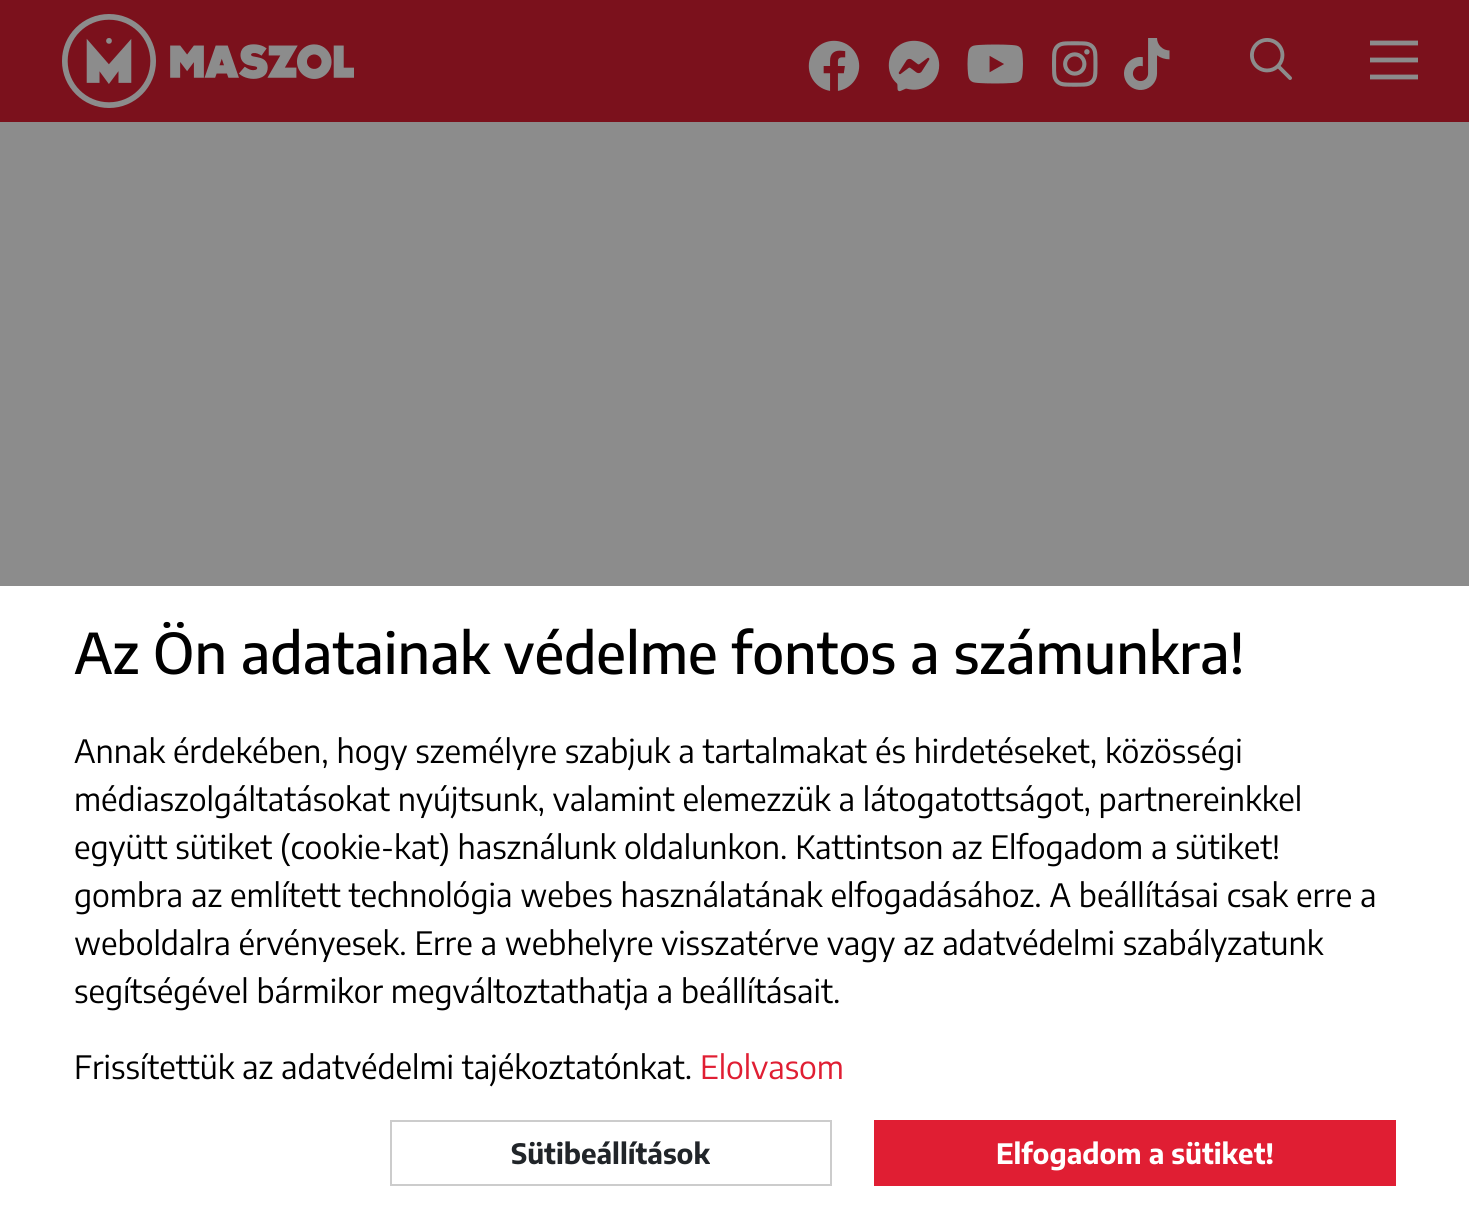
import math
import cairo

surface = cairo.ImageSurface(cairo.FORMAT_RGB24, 1469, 1232)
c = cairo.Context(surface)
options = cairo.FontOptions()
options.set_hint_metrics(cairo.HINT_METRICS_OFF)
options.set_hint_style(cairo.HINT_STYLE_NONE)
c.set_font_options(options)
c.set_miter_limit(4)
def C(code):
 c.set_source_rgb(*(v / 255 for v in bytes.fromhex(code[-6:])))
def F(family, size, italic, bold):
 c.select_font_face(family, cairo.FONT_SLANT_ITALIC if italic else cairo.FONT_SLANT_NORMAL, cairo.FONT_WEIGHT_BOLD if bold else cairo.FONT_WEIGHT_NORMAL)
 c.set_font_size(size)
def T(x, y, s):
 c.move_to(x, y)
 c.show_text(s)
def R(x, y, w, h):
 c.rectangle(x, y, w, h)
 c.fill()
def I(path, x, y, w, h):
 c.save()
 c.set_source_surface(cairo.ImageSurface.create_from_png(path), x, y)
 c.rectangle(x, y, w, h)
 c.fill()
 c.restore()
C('8c8c8c')
c.paint()
C('7b111c')
R(0,0,1469,122)
I('1.png',62,14,94,94)
I('2.png',170,44,184,35)
I('3.png',808,40,52,51)
I('4.png',888,40,52,52)
I('5.png',967,44,56,40)
I('6.png',1052,41,46,46)
I('7.png',1124,38,46,52)
I('8.png',1250,38,42,42)
c.new_path()
c.move_to(1370,43)
c.line_to(1418,43)
c.move_to(1370,60)
c.line_to(1418,60)
c.move_to(1370,77)
c.line_to(1418,77)
C('8c8c8c')
c.set_line_width(4.8)
c.stroke()
C('ffffff')
R(0,586,1469,646)
F('Encode Sans Medium',56,0,0)
C('000000')
T(74,674,'Az Ön adatainak védelme fontos a számunkra!')
F('Encode Sans',32,0,0)
T(74,763,'Annak érdekében, hogy személyre szabjuk a tartalmakat és hirdetéseket, közösségi')
T(74,811,'médiaszolgáltatásokat nyújtsunk, valamint elemezzük a látogatottságot, partnereinkkel')
T(74,859,'együtt sütiket (cookie-kat) használunk oldalunkon. Kattintson az Elfogadom a sütiket!')
T(74,907,'gombra az említett technológia webes használatának elfogadásához. A beállításai csak erre a')
T(74,955,'weboldalra érvényesek. Erre a webhelyre visszatérve vagy az adatvédelmi szabályzatunk')
T(74,1003,'segítségével bármikor megváltoztathatja a beállításait.')
T(74,1079,'Frissítettük az adatvédelmi tajékoztatónkat.')
C('e01e33')
T(700,1079,'Elolvasom')
c.rectangle(391,1121,440,64)
C('cccccc')
c.set_line_width(2)
c.stroke()
F('Encode Sans',28,0,1)
C('212529')
T(511,1164,'Sütibeállítások')
C('e01e33')
R(874,1120,522,66)
C('ffffff')
T(996,1164,'Elfogadom a sütiket!')
surface.write_to_png('o.png')
